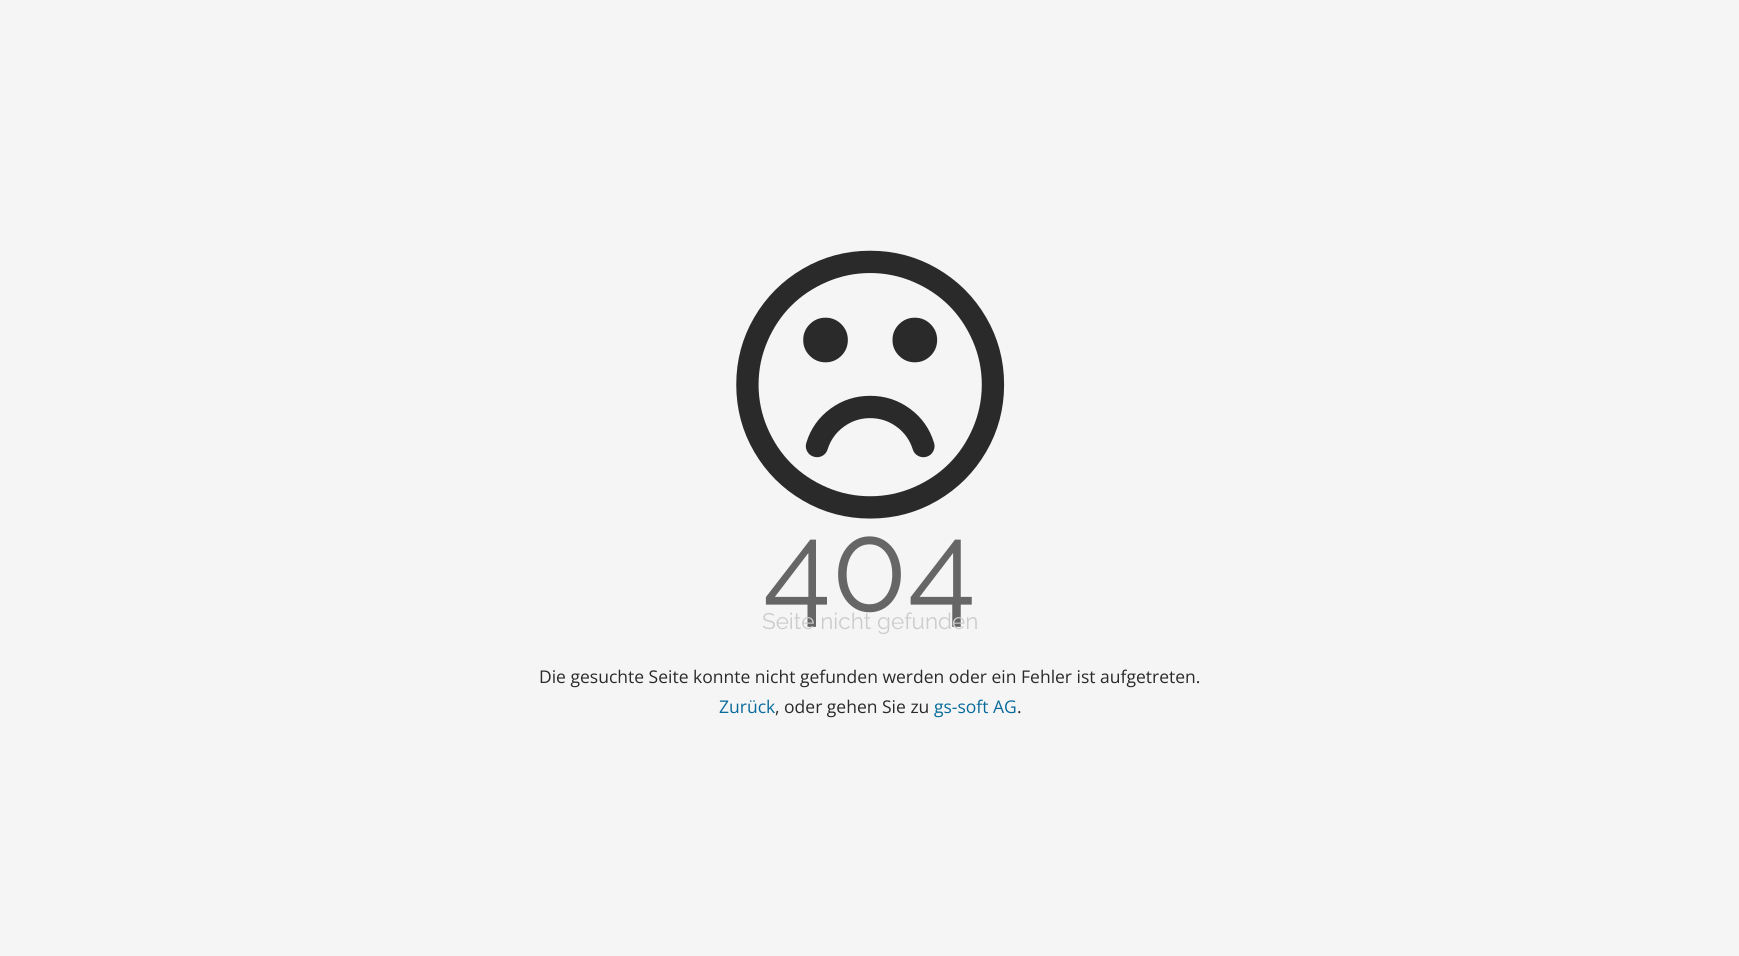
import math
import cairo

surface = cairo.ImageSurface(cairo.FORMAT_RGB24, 1739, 956)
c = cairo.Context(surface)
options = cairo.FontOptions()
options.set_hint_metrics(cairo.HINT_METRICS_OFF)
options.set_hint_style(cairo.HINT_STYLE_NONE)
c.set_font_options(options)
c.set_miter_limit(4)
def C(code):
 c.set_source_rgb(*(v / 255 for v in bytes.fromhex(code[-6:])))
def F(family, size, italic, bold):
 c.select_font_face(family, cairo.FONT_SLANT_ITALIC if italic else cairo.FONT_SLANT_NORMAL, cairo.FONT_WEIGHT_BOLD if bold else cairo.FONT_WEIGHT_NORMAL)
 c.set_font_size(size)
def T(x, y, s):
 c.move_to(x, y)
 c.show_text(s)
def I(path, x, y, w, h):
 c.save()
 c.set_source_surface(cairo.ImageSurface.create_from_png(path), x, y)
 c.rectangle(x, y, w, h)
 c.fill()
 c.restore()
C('f5f5f5')
c.paint()
I('1.png',736,250,269,269)
F('Raleway',125,0,0)
C('666666')
T(763,611,'404')
F('Raleway',22.5,0,0)
C('cccccc')
T(762,629,'Seite nicht gefunden')
F('Open Sans',17.5,0,0)
C('2a2a2a')
T(539,683,'Die gesuchte Seite konnte nicht gefunden werden oder ein Fehler ist aufgetreten.')
C('096b9c')
T(719,713,'Zurück')
C('2a2a2a')
T(775,713,', oder gehen Sie zu')
C('096b9c')
T(934,713,'gs-soft AG')
C('2a2a2a')
T(1017,713,'.')
surface.write_to_png('o.png')
